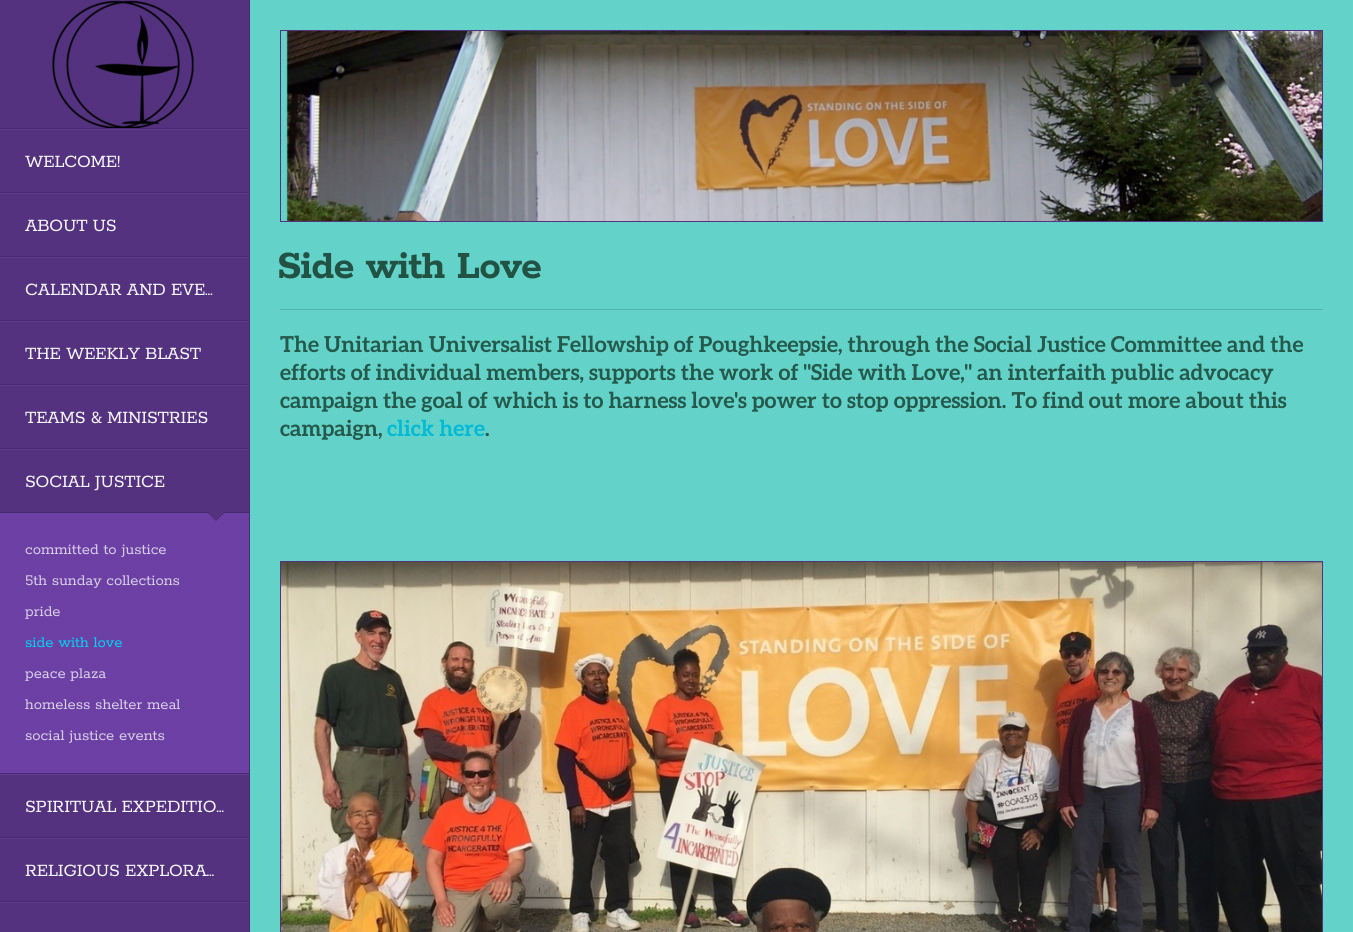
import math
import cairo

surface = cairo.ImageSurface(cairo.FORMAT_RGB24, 1353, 932)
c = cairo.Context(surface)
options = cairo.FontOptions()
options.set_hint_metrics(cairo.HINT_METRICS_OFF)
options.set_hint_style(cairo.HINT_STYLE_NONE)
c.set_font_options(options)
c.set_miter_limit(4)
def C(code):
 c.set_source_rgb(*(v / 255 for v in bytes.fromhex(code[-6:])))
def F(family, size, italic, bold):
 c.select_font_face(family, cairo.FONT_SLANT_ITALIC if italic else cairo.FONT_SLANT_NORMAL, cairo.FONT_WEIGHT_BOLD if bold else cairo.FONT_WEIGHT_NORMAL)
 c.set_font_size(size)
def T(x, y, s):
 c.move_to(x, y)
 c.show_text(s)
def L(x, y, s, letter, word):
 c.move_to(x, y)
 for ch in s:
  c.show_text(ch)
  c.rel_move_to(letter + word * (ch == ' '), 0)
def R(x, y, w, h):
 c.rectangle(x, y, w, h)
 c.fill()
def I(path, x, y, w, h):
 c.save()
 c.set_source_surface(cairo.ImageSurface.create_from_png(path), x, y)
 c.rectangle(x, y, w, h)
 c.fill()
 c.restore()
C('543280')
c.paint()
I('1.png',1,1,247,127)
C('482b6e')
R(249,0,1,932)
R(0,128,249,1)
I('2.png',52,0,142,128)
I('3.png',1,131,247,61)
C('603992')
R(0,129,249,1)
C('482b6e')
R(0,192,249,1)
F('Rokkitt',19.25,0,0)
C('f6f5f9')
L(25,167,'WELCOME!',-.2,0)
I('3.png',1,195,247,61)
C('603992')
R(0,193,249,1)
C('482b6e')
R(0,256,249,1)
C('f6f5f9')
L(25,231,'ABOUT US',-.2,0)
I('3.png',1,259,247,61)
C('603992')
R(0,257,249,1)
C('482b6e')
R(0,320,249,1)
C('f6f5f9')
L(25,295,'CALENDAR AND EVE…',-.2,0)
I('3.png',1,323,247,61)
C('603992')
R(0,321,249,1)
C('482b6e')
R(0,384,249,1)
C('f6f5f9')
L(25,359,'THE WEEKLY BLAST',-.2,0)
I('3.png',1,387,247,61)
C('603992')
R(0,385,249,1)
C('482b6e')
R(0,448,249,1)
C('f6f5f9')
L(25,423,'TEAMS & MINISTRIES',-.2,0)
I('3.png',1,451,247,61)
C('603992')
R(0,449,249,1)
C('482b6e')
R(0,773,249,1)
C('f6f5f9')
L(25,487,'SOCIAL JUSTICE',-.2,0)
C('6c40a5')
R(0,513,249,260)
I('4.png',1,513,247,259)
C('482b6e')
c.new_path()
c.move_to(208,513)
c.line_to(224,513)
c.line_to(216,521)
c.close_path()
c.fill()
R(0,512,249,1)
C('543280')
c.new_path()
c.move_to(208,512)
c.line_to(224,512)
c.line_to(216,520)
c.close_path()
c.fill()
F('Rokkitt',16.6,0,0)
C('dacfe9')
T(25,554,'committed to justice')
T(25,585,'5th sunday collections')
T(25,616,'pride')
C('00d4f5')
T(25,647,'side with love')
C('dacfe9')
T(25,678,'peace plaza')
T(25,709,'homeless shelter meal')
T(25,740,'social justice events')
I('3.png',1,776,247,61)
C('603992')
R(0,774,249,1)
C('482b6e')
R(0,837,249,1)
F('Rokkitt',19.25,0,0)
C('f6f5f9')
L(25,812,'SPIRITUAL EXPEDITIO…',-.2,0)
I('3.png',1,840,247,61)
C('603992')
R(0,838,249,1)
C('482b6e')
R(0,901,249,1)
C('f6f5f9')
L(25,876,'RELIGIOUS EXPLORA…',-.2,0)
I('5.png',1,904,247,27)
C('603992')
R(0,902,249,1)
C('64d4cb')
R(250,0,1103,932)
I('6.png',251,1,1101,499)
c.rectangle(280.5,30.5,1042,191)
C('543280')
c.set_line_width(1)
c.stroke()
I('7.png',286,31,1036,190)
C('53b4a9')
R(280,309,1043,1)
F('Rokkitt',43,0,1)
C('215244')
L(277,278,'Side with Love',-.9,0)
F('Aleo',22,0,1)
C('24594b')
T(280,352,'The Unitarian Universalist Fellowship of Poughkeepsie, through the Social Justice Committee and the')
T(280,380,'efforts of individual members, supports the work of "Side with Love," an interfaith public advocacy')
T(280,408,'campaign the goal of which is to harness love\'s power to stop oppression. To find out more about this')
T(280,436,'campaign,')
C('00bad6')
T(387,436,'click here')
C('24594b')
T(485,436,'.')
I('8.png',251,502,1101,429)
c.rectangle(280.5,561.5,1042,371)
C('543280')
c.stroke()
I('9.png',281,562,1041,370)
surface.write_to_png('o.png')
